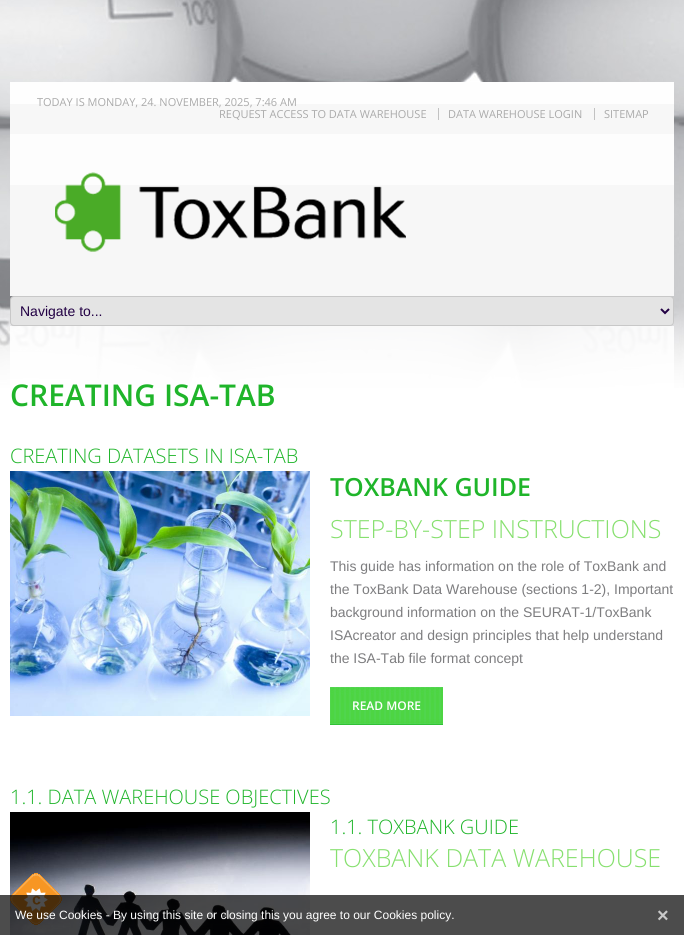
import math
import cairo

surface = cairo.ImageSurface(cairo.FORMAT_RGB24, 684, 935)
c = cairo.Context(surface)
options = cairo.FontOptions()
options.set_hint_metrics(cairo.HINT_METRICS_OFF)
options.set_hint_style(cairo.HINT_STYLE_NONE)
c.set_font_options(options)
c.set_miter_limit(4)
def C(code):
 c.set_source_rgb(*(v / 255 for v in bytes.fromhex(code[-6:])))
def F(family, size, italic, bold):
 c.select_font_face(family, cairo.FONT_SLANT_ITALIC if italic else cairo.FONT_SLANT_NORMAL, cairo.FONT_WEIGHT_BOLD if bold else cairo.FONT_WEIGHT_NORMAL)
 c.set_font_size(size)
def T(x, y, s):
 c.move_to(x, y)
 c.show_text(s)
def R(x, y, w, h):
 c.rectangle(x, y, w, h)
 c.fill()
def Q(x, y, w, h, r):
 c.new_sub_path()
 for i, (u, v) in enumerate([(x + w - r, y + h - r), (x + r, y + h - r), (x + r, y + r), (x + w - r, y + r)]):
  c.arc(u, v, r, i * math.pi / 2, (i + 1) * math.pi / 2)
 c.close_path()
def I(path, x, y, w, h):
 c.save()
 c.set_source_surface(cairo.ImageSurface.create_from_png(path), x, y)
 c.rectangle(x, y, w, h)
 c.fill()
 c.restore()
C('ffffff')
c.paint()
I('1.png',0,0,684,388)
C('f7f7f7')
R(10,104,664,30)
C('fefefe')
R(10,82,664,22)
F('Open Sans',11,0,0)
C('aaaaaa')
T(37,106,'TODAY IS MONDAY, 24. NOVEMBER, 2025, 7:46 AM')
T(219,118,'REQUEST ACCESS TO DATA WAREHOUSE')
C('c2c2c2')
R(438,108,1,12)
C('aaaaaa')
T(448,118,'DATA WAREHOUSE LOGIN')
C('c2c2c2')
R(594,108,1,12)
C('aaaaaa')
T(604,118,'SITEMAP')
C('f7f7f7')
R(10,185,664,111)
C('fdfdfd')
R(10,134,664,51)
I('2.png',55,172,351,80)
C('e4e4e4')
Q(10.5,296.5,663,29,3.5)
c.fill_preserve()
C('c8c8c8')
c.set_line_width(1)
c.stroke()
c.new_path()
c.move_to(661,309)
c.line_to(665,313)
c.line_to(669,309)
C('220044')
c.set_line_width(2)
c.stroke()
F('Liberation Sans',14,0,0)
T(20,316,'Navigate to...')
I('3.png',10,326,664,62)
F('Open Sans SemiBold',30,0,0)
C('1fb52a')
T(10,406,'CREATING ISA-TAB')
F('Open Sans Light',20,0,0)
T(10,463,'CREATING DATASETS IN ISA-TAB')
I('4.png',10,471,300,245)
F('Open Sans SemiBold',25,0,0)
T(330,496,'TOXBANK GUIDE')
F('Open Sans Light',25,0,0)
C('87e06f')
T(330,538,'STEP-BY-STEP INSTRUCTIONS')
F('Liberation Sans',14,0,0)
C('7d7d7f')
T(330,571,'This guide has information on the role of ToxBank and')
T(330,594,'the ToxBank Data Warehouse (sections 1-2), Important')
T(330,617,'background information on the SEURAT-1/ToxBank')
T(330,640,'ISAcreator and design principles that help understand')
T(330,663,'the ISA-Tab file format concept')
C('31c135')
R(330,724,113,1)
I('5.png',330,687,113,37)
F('Open Sans SemiBold',12,0,0)
C('ffffff')
T(352,710,'READ MORE')
F('Open Sans Light',20,0,0)
C('1fb52a')
T(10,804,'1.1. DATA WAREHOUSE OBJECTIVES')
I('6.png',10,812,300,123)
T(330,834,'1.1. TOXBANK GUIDE')
F('Open Sans Light',25,0,0)
C('87e06f')
T(330,867,'TOXBANK DATA WAREHOUSE')
I('7.png',10,873,52,52)
c.set_source_rgba(0,0,0,0.7)
R(0,895,684,40)
F('Liberation Sans',12,0,0)
C('ffffff')
T(15,919,'We use Cookies - By using this site or closing this you agree to our Cookies policy.')
F('Liberation Sans',20,0,1)
C('c9c9c9')
T(657,922,'×')
surface.write_to_png('o.png')
